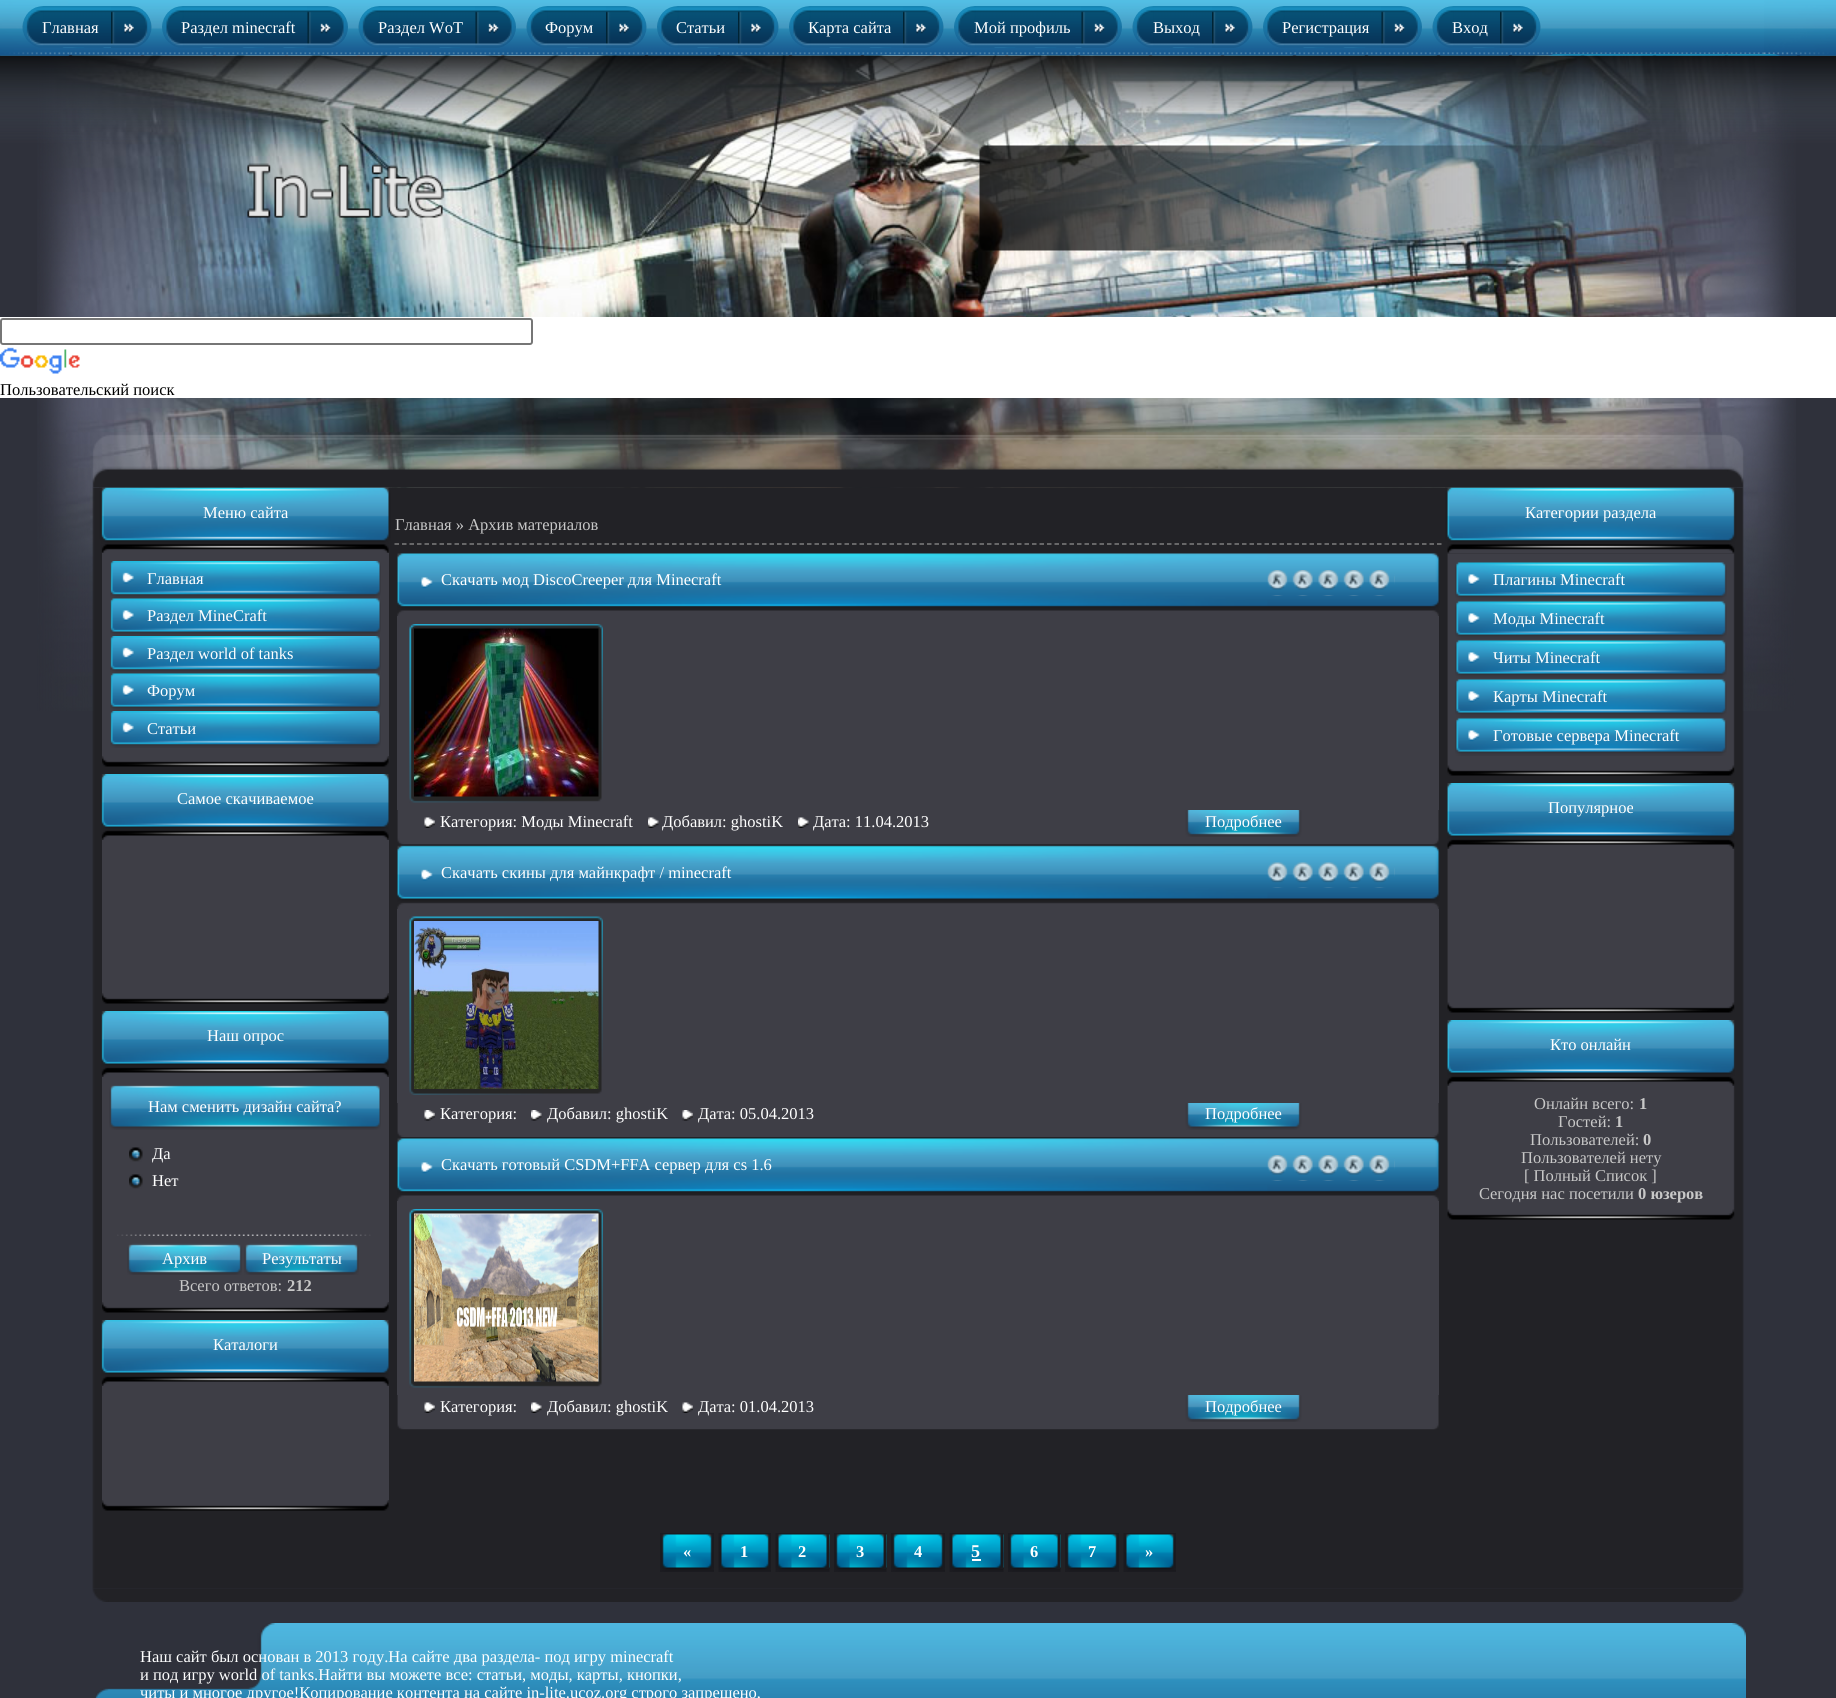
import math
import cairo

surface = cairo.ImageSurface(cairo.FORMAT_RGB24, 1836, 1698)
c = cairo.Context(surface)
options = cairo.FontOptions()
options.set_hint_metrics(cairo.HINT_METRICS_OFF)
options.set_hint_style(cairo.HINT_STYLE_NONE)
c.set_font_options(options)
c.set_miter_limit(4)
def C(code):
 c.set_source_rgb(*(v / 255 for v in bytes.fromhex(code[-6:])))
def F(family, size, italic, bold):
 c.select_font_face(family, cairo.FONT_SLANT_ITALIC if italic else cairo.FONT_SLANT_NORMAL, cairo.FONT_WEIGHT_BOLD if bold else cairo.FONT_WEIGHT_NORMAL)
 c.set_font_size(size)
def T(x, y, s):
 c.move_to(x, y)
 c.show_text(s)
def R(x, y, w, h):
 c.rectangle(x, y, w, h)
 c.fill()
def Q(x, y, w, h, r):
 c.new_sub_path()
 for i, (u, v) in enumerate([(x + w - r, y + h - r), (x + r, y + h - r), (x + r, y + r), (x + w - r, y + r)]):
  c.arc(u, v, r, i * math.pi / 2, (i + 1) * math.pi / 2)
 c.close_path()
def I(path, x, y, w, h):
 c.save()
 c.set_source_surface(cairo.ImageSurface.create_from_png(path), x, y)
 c.rectangle(x, y, w, h)
 c.fill()
 c.restore()
C('2f313b')
c.paint()
I('1.png',37,55,1759,656)
I('14.png',0,55,1836,88)
I('2.png',0,0,1836,56)
I('3.png',22,6,130,42)
F('Liberation Serif',16.5,0,0)
C('ffffff')
T(42,33,'Главная')
I('4.png',162,6,186,42)
T(181,33,'Раздел minecraft')
I('5.png',358,6,158,42)
T(378,33,'Раздел WoT')
I('6.png',526,6,121,42)
T(545,33,'Форум')
I('7.png',657,6,122,42)
T(676,33,'Статьи')
I('8.png',789,6,155,42)
T(808,33,'Карта сайта')
I('9.png',954,6,168,42)
T(974,33,'Мой профиль')
I('10.png',1132,6,121,42)
T(1153,33,'Выход')
I('11.png',1263,6,159,42)
T(1282,33,'Регистрация')
I('12.png',1432,6,109,42)
T(1452,33,'Вход')
I('13.png',1549,54,231,2)
I('15.png',247,163,198,55)
I('16.png',979,145,662,106)
R(0,317,1836,81)
Q(1,319,531,25,2)
C('767676')
c.stroke()
I('17.png',0,347,80,27)
C('000000')
T(0,395,'Пользовательский поиск')
I('18.png',92,434,1652,54)
I('65.png',92,1588,1652,14)
I('19.png',92,487,1652,1102)
I('20.png',99,487,292,67)
C('ffffff')
T(203,518,'Меню сайта')
C('3e3e46')
R(102,553,287,203)
I('21.png',110,561,271,37)
C('ffffff')
T(147,584,'Главная')
I('22.png',110,598,271,38)
T(147,621,'Раздел MineCraft')
I('21.png',110,636,271,37)
T(147,659,'Раздел world of tanks')
I('22.png',110,673,271,38)
T(147,696,'Форум')
I('21.png',110,711,271,37)
T(147,734,'Статьи')
I('23.png',102,756,287,11)
I('24.png',101,774,288,66)
T(177,804,'Самое скачиваемое')
C('3e3e46')
R(102,840,287,153)
I('23.png',102,993,287,11)
I('24.png',101,1011,288,66)
C('ffffff')
T(207,1041,'Наш опрос')
C('3e3e46')
R(102,1077,287,225)
I('25.png',109,1085,272,45)
C('ffffff')
T(148,1112,'Нам сменить дизайн сайта?')
I('26.png',129,1147,14,15)
T(152,1159,'Да')
I('26.png',129,1174,14,15)
T(152,1186,'Нет')
I('27.png',117,1234,254,2)
I('28.png',127,1243,115,32)
T(162,1264,'Архив')
I('28.png',244,1243,115,32)
T(262,1264,'Результаты')
C('c8c8c8')
T(179,1291,'Всего ответов:')
F('Liberation Serif',16.5,0,1)
T(287,1291,'212')
I('23.png',102,1302,287,11)
I('24.png',101,1320,288,66)
F('Liberation Serif',16.5,0,0)
C('ffffff')
T(213,1350,'Каталоги')
C('3e3e46')
R(102,1386,287,114)
I('23.png',102,1500,287,11)
C('c8c8c8')
T(395,530,'Главная » Архив материалов')
c.new_path()
c.move_to(394.5,544)
c.line_to(1441.5,544)
C('7e7e7e')
c.set_line_width(1.5)
c.set_dash([4.5,3])
c.stroke()
I('29.png',397,553,1043,64)
C('ffffff')
T(441,585,'Скачать мод DiscoCreeper для Minecraft')
I('30.png',1267,570,128,26)
C('3e3e46')
R(397,616,1042,194)
I('31.png',409,624,194,179)
I('32.png',414,628,185,169)
I('33.png',397,810,1042,35)
I('34.png',424,817,11,11)
C('ffffff')
T(440,827,'Категория: Моды Minecraft')
I('35.png',648,817,11,11)
T(662,827,'Добавил: ghostiK')
I('35.png',798,817,11,11)
T(813,827,'Дата: 11.04.2013')
I('36.png',1185,810,117,27)
T(1205,827,'Подробнее')
I('37.png',397,845,1043,64)
T(441,878,'Скачать скины для майнкрафт / minecraft')
I('38.png',1267,862,128,26)
C('3e3e46')
R(397,909,1042,194)
I('39.png',409,916,194,179)
I('40.png',414,921,185,168)
I('41.png',397,1103,1042,34)
I('42.png',424,1110,11,11)
C('ffffff')
T(440,1119,'Категория:')
I('43.png',531,1110,11,11)
T(547,1119,'Добавил: ghostiK')
I('42.png',682,1110,11,11)
T(698,1119,'Дата: 05.04.2013')
I('44.png',1185,1103,117,27)
T(1205,1119,'Подробнее')
I('29.png',397,1138,1043,64)
T(441,1170,'Скачать готовый CSDM+FFA сервер для cs 1.6')
I('45.png',1267,1155,128,26)
C('3e3e46')
R(397,1201,1042,194)
I('31.png',409,1209,194,179)
I('46.png',414,1213,185,169)
I('33.png',397,1395,1042,35)
I('34.png',424,1402,11,11)
C('ffffff')
T(440,1412,'Категория:')
I('47.png',531,1402,11,11)
T(547,1412,'Добавил: ghostiK')
I('34.png',682,1402,11,11)
T(698,1412,'Дата: 01.04.2013')
I('36.png',1185,1395,117,27)
T(1205,1412,'Подробнее')
I('48.png',660,1533,54,39)
I('49.png',675,1534,39,36)
F('Liberation Serif',16.5,0,1)
T(683,1557,'«')
I('50.png',718,1533,53,39)
I('51.png',733,1534,38,36)
T(740,1557,'1')
I('52.png',775,1533,55,39)
I('53.png',791,1534,39,35)
T(798,1557,'2')
I('54.png',834,1533,53,39)
I('55.png',849,1534,38,35)
T(856,1557,'3')
I('48.png',891,1533,54,39)
I('49.png',906,1534,39,36)
T(914,1557,'4')
I('56.png',949,1533,55,39)
I('57.png',965,1534,39,35)
F('Liberation Serif',18,0,1)
T(971,1557,'5')
R(972,1559,9,2)
I('54.png',1008,1533,53,39)
I('55.png',1023,1534,38,35)
F('Liberation Serif',16.5,0,1)
T(1030,1557,'6')
I('48.png',1065,1533,54,39)
I('49.png',1080,1534,39,36)
T(1088,1557,'7')
I('50.png',1123,1533,53,39)
I('51.png',1138,1534,38,36)
T(1145,1557,'»')
I('58.png',1445,487,292,67)
F('Liberation Serif',16.5,0,0)
T(1525,518,'Категории раздела')
I('59.png',1447,553,288,212)
I('60.png',1455,562,272,38)
T(1493,585,'Плагины Minecraft')
I('60.png',1455,601,272,38)
T(1493,624,'Моды Minecraft')
I('60.png',1455,640,272,38)
T(1493,663,'Читы Minecraft')
I('60.png',1455,679,272,38)
T(1493,702,'Карты Minecraft')
I('60.png',1455,718,272,38)
T(1493,741,'Готовые сервера Minecraft')
I('61.png',1447,765,288,11)
I('62.png',1447,783,288,66)
T(1548,813,'Популярное')
I('63.png',1447,849,288,153)
I('61.png',1447,1002,288,11)
I('62.png',1447,1020,288,66)
T(1550,1050,'Кто онлайн')
I('64.png',1447,1086,288,123)
C('c8c8c8')
T(1534,1109,'Онлайн всего:')
F('Liberation Serif',16.5,0,1)
T(1639,1109,'1')
F('Liberation Serif',16.5,0,0)
T(1558,1127,'Гостей:')
F('Liberation Serif',16.5,0,1)
T(1615,1127,'1')
F('Liberation Serif',16.5,0,0)
T(1530,1145,'Пользователей:')
F('Liberation Serif',16.5,0,1)
T(1643,1145,'0')
F('Liberation Serif',16.5,0,0)
T(1521,1163,'Пользователей нету')
T(1524,1181,'[ Полный Список ]')
T(1479,1199,'Сегодня нас посетили')
F('Liberation Serif',16.5,0,1)
T(1638,1199,'0 юзеров')
I('61.png',1447,1209,288,11)
I('66.png',95,1623,1651,75)
F('Liberation Serif',16.5,0,0)
C('ffffff')
T(140,1662,'Наш сайт был основан в 2013 году.На сайте два раздела- под игру minecraft')
T(140,1680,'и под игру world of tanks.Найти вы можете все: статьи, моды, карты, кнопки,')
T(140,1698,'читы и многое другое!Копирование контента на сайте in-lite.ucoz.org строго запрещено,')
surface.write_to_png('o.png')
